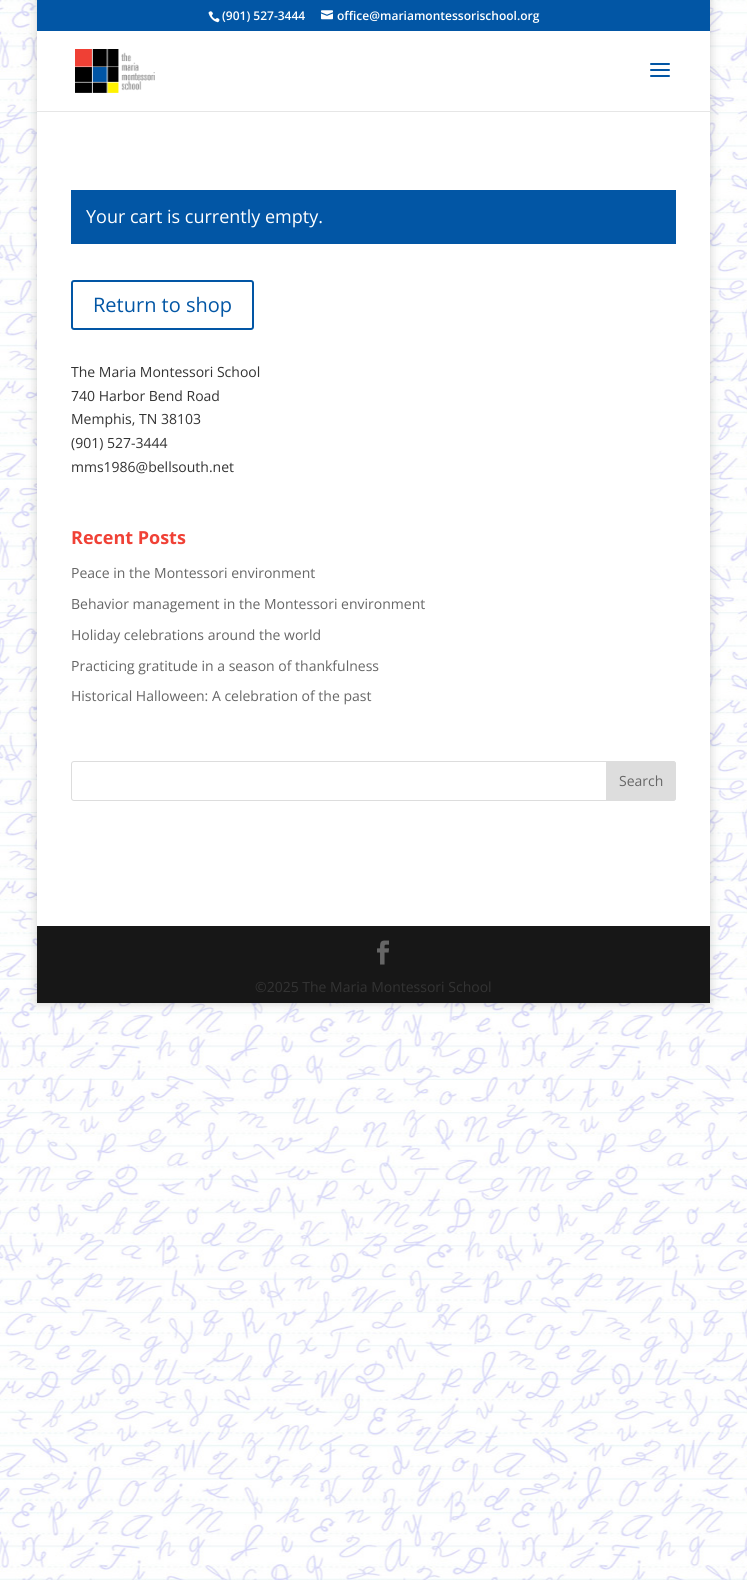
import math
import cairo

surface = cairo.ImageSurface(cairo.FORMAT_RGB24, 747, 1580)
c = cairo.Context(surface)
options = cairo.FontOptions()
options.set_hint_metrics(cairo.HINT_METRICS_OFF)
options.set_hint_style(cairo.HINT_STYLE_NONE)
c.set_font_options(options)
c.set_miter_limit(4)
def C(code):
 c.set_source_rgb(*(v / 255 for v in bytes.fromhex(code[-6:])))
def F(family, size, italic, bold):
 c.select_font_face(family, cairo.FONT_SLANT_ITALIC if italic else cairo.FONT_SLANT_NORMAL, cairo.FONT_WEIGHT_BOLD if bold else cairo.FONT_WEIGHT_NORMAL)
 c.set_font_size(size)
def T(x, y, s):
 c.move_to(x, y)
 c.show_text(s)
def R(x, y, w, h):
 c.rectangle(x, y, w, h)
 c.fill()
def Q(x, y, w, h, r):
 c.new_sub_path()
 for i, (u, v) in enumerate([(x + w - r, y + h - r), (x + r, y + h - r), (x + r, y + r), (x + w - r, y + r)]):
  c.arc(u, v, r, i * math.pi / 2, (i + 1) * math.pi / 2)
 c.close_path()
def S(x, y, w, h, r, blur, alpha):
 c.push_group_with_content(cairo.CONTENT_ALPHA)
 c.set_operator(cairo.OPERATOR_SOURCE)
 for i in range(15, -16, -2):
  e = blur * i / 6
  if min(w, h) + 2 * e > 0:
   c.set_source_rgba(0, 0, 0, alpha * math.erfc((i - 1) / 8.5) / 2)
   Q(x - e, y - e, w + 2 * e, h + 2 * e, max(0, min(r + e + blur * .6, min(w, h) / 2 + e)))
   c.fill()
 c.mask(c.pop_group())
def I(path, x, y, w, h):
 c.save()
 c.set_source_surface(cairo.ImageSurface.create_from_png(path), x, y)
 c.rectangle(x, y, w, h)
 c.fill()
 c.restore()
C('ffffff')
c.paint()
I('1.png',0,0,747,1580)
C('000000')
S(37,0,673,1003,0,5,.2)
C('0256a5')
R(37,0,673,31)
I('2.png',208,11,12,12)
F('Open Sans SemiBold',12,0,0)
C('ffffff')
T(222,20,'(901) 527-3444')
I('3.png',321,10,12,10)
T(337,20,'office@mariamontessorischool.org')
C('e6e6e6')
R(37,111,673,1)
C('ffffff')
R(37,31,673,80)
I('4.png',75,49,80,44)
I('5.png',650,63,20,14)
R(37,112,673,814)
C('0256a5')
R(71,190,605,54)
F('Open Sans',18,0,0)
C('ffffff')
T(86,223,'Your cart is currently empty.')
Q(72,281,181,48,2)
C('0256a5')
c.stroke()
F('Open Sans',20,0,0)
T(93,312,'Return to shop')
F('Open Sans',14,0,0)
C('333333')
T(71,377,'The Maria Montessori School')
T(71,401,'740 Harbor Bend Road')
T(71,424,'Memphis, TN 38103')
T(71,448,'(901) 527-3444')
T(71,472,'mms1986@bellsouth.net')
F('Open Sans',18,0,1)
C('f04136')
T(71,544,'Recent Posts')
F('Open Sans',14,0,0)
C('666666')
T(71,578,'Peace in the Montessori environment')
T(71,609,'Behavior management in the Montessori environment')
T(71,640,'Holiday celebrations around the world')
T(71,671,'Practicing gratitude in a season of thankfulness')
T(71,701,'Historical Halloween: A celebration of the past')
Q(71.5,761.5,604,39,2.5)
C('dddddd')
c.set_line_width(1)
c.stroke()
c.new_path()
c.move_to(606.5,761.5)
c.line_to(673,761.5)
c.curve_to(674.5,761.5,675.5,762.5,675.5,764)
c.line_to(675.5,798)
c.curve_to(675.5,799.5,674.5,800.5,673,800.5)
c.line_to(606.5,800.5)
c.close_path()
c.fill_preserve()
c.stroke()
C('666666')
T(619,786,'Search')
C('171717')
R(37,926,673,77)
I('6.png',377,940,12,25)
C('333333')
T(255,992,'©2025 The Maria Montessori School')
surface.write_to_png('o.png')
